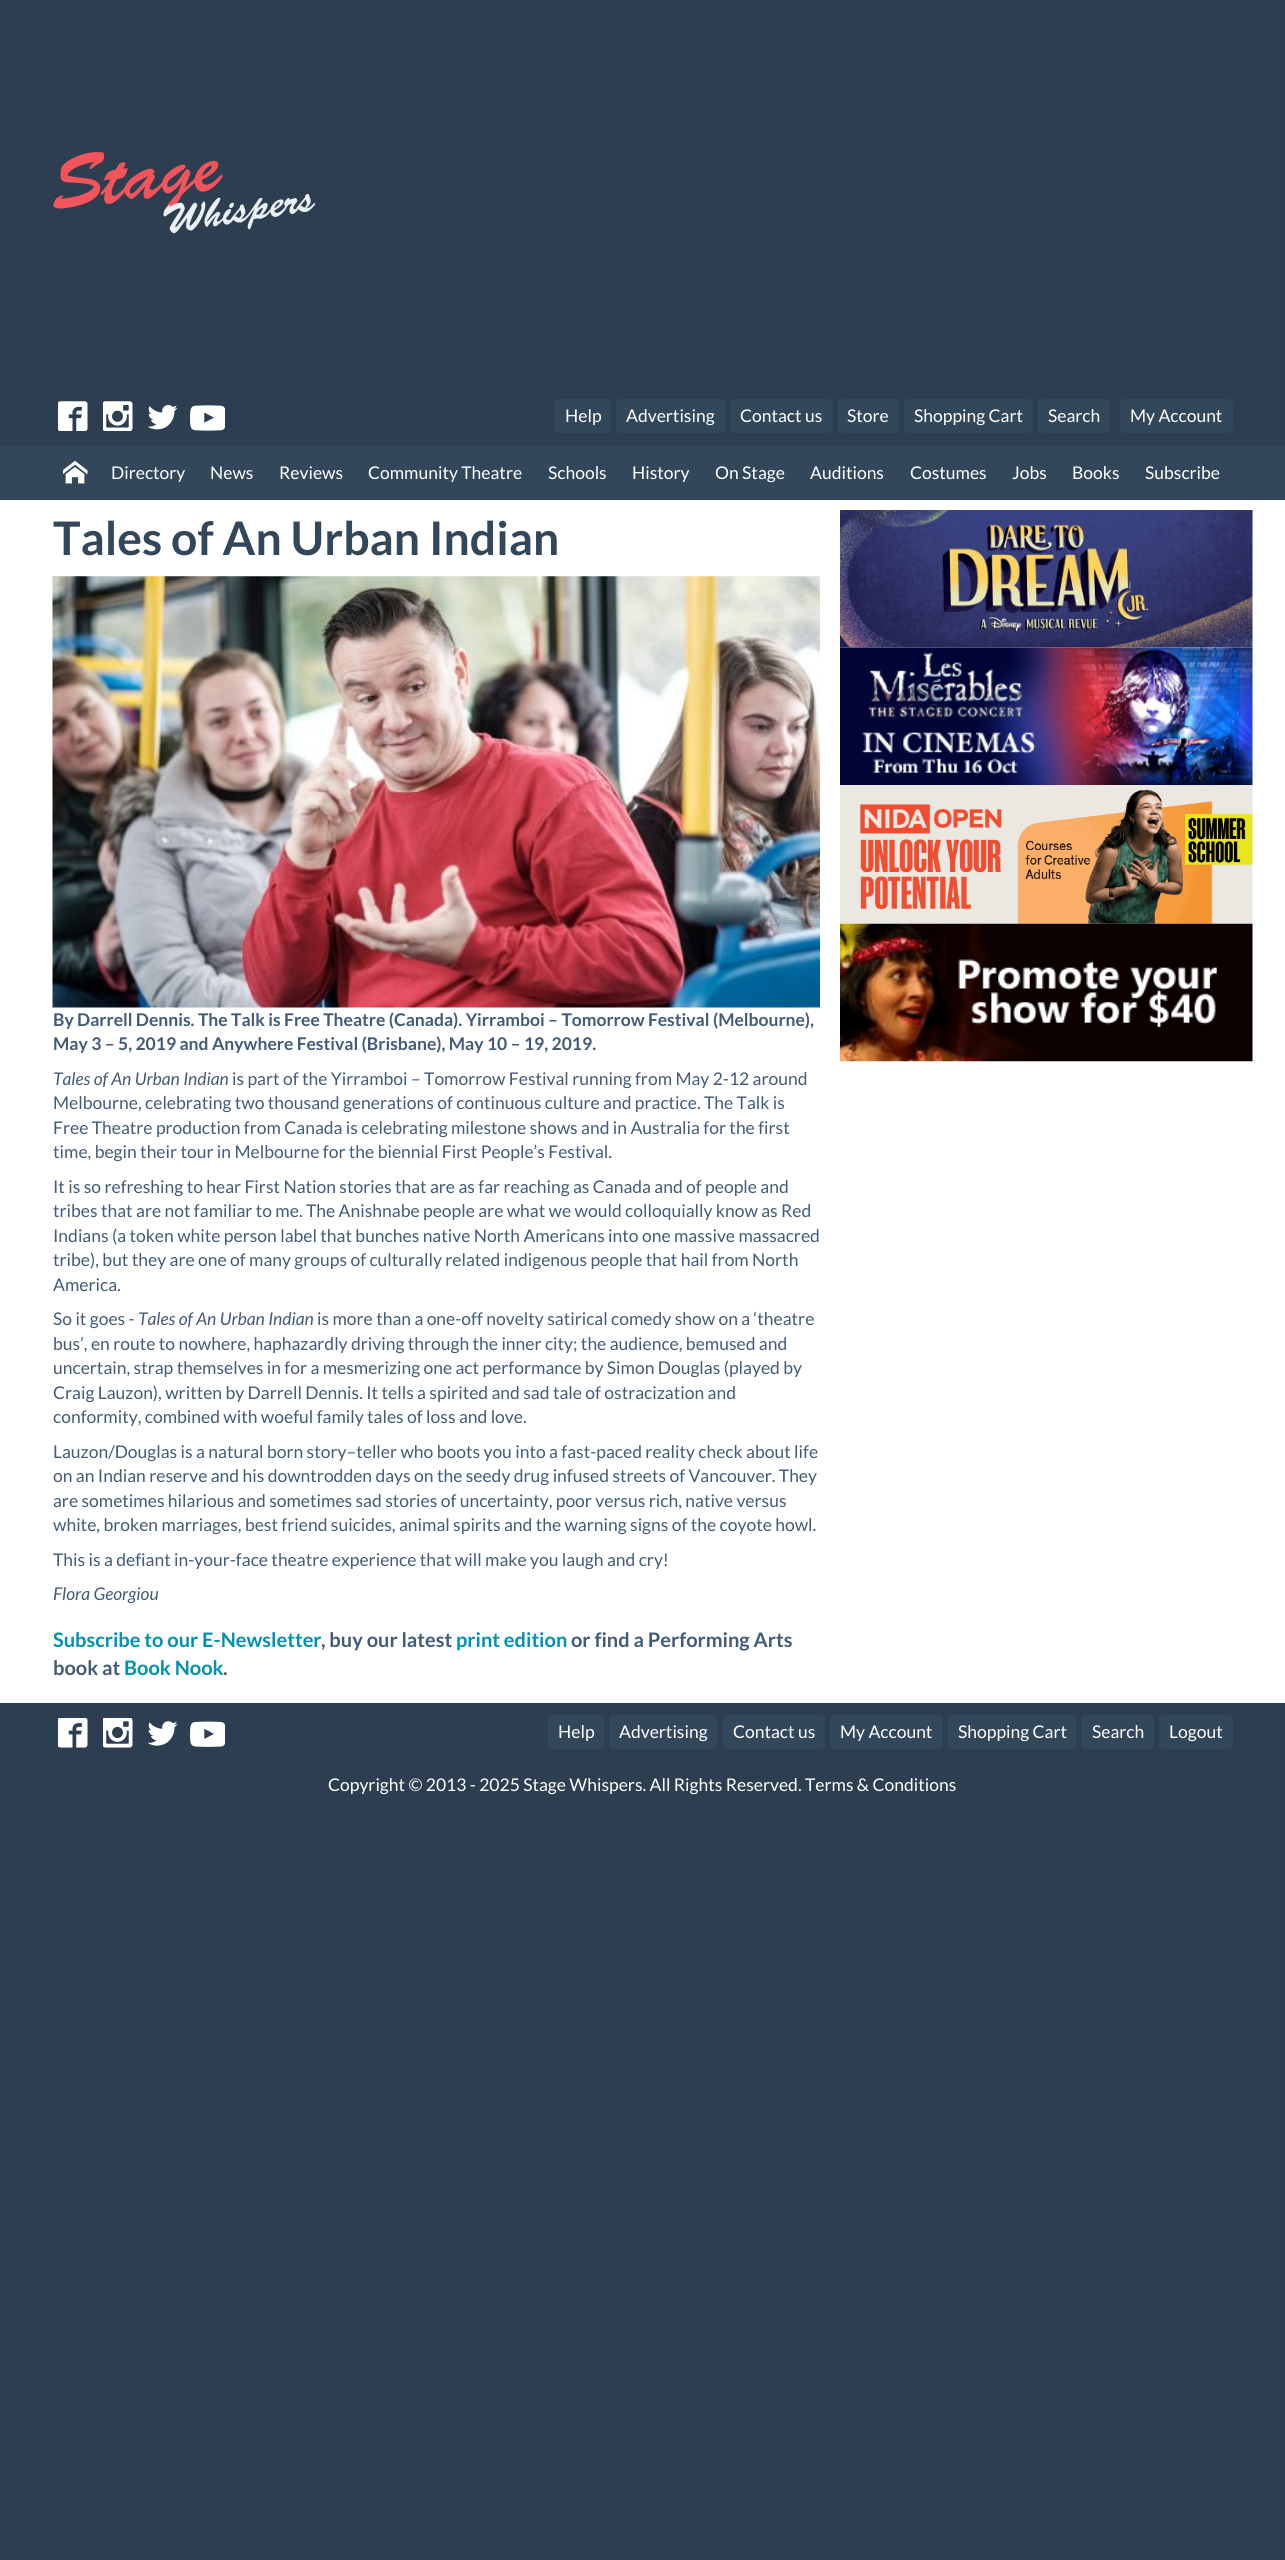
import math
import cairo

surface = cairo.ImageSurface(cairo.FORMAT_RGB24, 1285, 2560)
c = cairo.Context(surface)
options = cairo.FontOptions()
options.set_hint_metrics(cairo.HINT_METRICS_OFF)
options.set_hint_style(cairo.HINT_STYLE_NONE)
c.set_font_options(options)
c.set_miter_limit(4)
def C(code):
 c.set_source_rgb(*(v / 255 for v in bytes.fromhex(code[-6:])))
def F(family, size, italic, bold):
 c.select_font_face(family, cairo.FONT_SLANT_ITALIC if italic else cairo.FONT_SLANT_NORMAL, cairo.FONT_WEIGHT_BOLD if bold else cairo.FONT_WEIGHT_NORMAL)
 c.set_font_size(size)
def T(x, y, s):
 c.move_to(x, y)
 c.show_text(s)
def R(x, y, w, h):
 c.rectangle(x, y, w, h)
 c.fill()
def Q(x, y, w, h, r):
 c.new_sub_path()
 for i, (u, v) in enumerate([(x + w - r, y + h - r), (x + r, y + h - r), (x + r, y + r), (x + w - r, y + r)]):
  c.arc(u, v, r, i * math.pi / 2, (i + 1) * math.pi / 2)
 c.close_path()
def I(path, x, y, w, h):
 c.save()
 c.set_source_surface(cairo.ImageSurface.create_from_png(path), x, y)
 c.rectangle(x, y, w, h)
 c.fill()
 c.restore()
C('2d3e50')
c.paint()
I('1.png',53,152,263,82)
I('2.png',58,401,30,30)
I('3.png',103,401,30,30)
I('4.png',148,405,30,25)
I('5.png',190,405,35,26)
C('33475b')
Q(555,399,56,34,5)
c.fill()
F('Lato',17.5,0,0)
C('ffffff')
T(565,422,'Help')
C('33475b')
Q(616,399,109,34,5)
c.fill()
C('ffffff')
T(626,422,'Advertising')
C('33475b')
Q(730,399,103,34,5)
c.fill()
C('ffffff')
T(740,422,'Contact us')
C('33475b')
Q(838,399,61,34,5)
c.fill()
C('ffffff')
T(847,422,'Store')
C('33475b')
Q(904,399,129,34,5)
c.fill()
C('ffffff')
T(914,422,'Shopping Cart')
C('33475b')
Q(1038,399,72,34,5)
c.fill()
C('ffffff')
T(1048,422,'Search')
C('33475b')
Q(1120,399,113,34,5)
c.fill()
C('ffffff')
T(1130,422,'My Account')
C('33475b')
R(0,446,1285,54)
I('6.png',63,460,25,24)
C('ffffff')
T(111,479,'Directory')
T(210,479,'News')
T(279,479,'Reviews')
T(368,479,'Community Theatre')
T(548,479,'Schools')
T(632,479,'History')
T(715,479,'On Stage')
T(810,479,'Auditions')
T(910,479,'Costumes')
T(1012,479,'Jobs')
T(1072,479,'Books')
T(1145,479,'Subscribe')
R(0,500,1285,1203)
F('Lato',46.25,0,1)
C('33475b')
T(53,555,'Tales of An Urban Indian')
I('7.png',52,576,768,432)
F('Lato',17.5,0,1)
C('425b76')
T(53,1026,'By Darrell Dennis. The Talk is Free Theatre (Canada). Yirramboi – Tomorrow Festival (Melbourne),')
T(53,1050,'May 3 – 5, 2019 and Anywhere Festival (Brisbane), May 10 – 19, 2019.')
F('Lato',17.5,1,0)
T(53,1085,'Tales of An Urban Indian')
F('Lato',17.5,0,0)
T(232,1085,'is part of the Yirramboi – Tomorrow Festival running from May 2-12 around')
T(53,1109,'Melbourne, celebrating two thousand generations of continuous culture and practice. The Talk is')
T(53,1134,'Free Theatre production from Canada is celebrating milestone shows and in Australia for the first')
T(53,1158,'time, begin their tour in Melbourne for the biennial First People’s Festival.')
T(53,1193,'It is so refreshing to hear First Nation stories that are as far reaching as Canada and of people and')
T(53,1217,'tribes that are not familiar to me. The Anishnabe people are what we would colloquially know as Red')
T(53,1242,'Indians (a token white person label that bunches native North Americans into one massive massacred')
T(53,1266,'tribe), but they are one of many groups of culturally related indigenous people that hail from North')
T(53,1291,'America.')
T(53,1325,'So it goes -')
F('Lato',17.5,1,0)
T(138,1325,'Tales of An Urban Indian')
F('Lato',17.5,0,0)
T(317,1325,'is more than a one-off novelty satirical comedy show on a ‘theatre')
T(53,1350,'bus’, en route to nowhere, haphazardly driving through the inner city; the audience, bemused and')
T(53,1374,'uncertain, strap themselves in for a mesmerizing one act performance by Simon Douglas (played by')
T(53,1399,'Craig Lauzon), written by Darrell Dennis. It tells a spirited and sad tale of ostracization and')
T(53,1423,'conformity, combined with woeful family tales of loss and love.')
T(53,1458,'Lauzon/Douglas is a natural born story–teller who boots you into a fast-paced reality check about life')
T(53,1482,'on an Indian reserve and his downtrodden days on the seedy drug infused streets of Vancouver. They')
T(53,1507,'are sometimes hilarious and sometimes sad stories of uncertainty, poor versus rich, native versus')
T(53,1531,'white, broken marriages, best friend suicides, animal spirits and the warning signs of the coyote howl.')
T(53,1566,'This is a defiant in-your-face theatre experience that will make you laugh and cry!')
F('Lato',17.5,1,0)
T(53,1600,'Flora Georgiou')
F('Lato',20,0,1)
C('0091ae')
T(53,1647,'Subscribe to our E-Newsletter')
C('425b76')
T(321,1647,', buy our latest')
C('0091ae')
T(456,1647,'print edition')
C('425b76')
T(571,1647,'or find a Performing Arts')
T(53,1675,'book at')
C('0091ae')
T(124,1675,'Book Nook')
C('425b76')
T(223,1675,'.')
I('8.png',840,510,413,138)
I('9.png',840,647,413,138)
I('10.png',840,785,413,139)
I('11.png',840,923,413,139)
I('12.png',58,1718,30,30)
I('13.png',103,1718,30,30)
I('14.png',148,1721,30,25)
I('15.png',190,1721,35,26)
C('33475b')
Q(548,1715,56,34,5)
c.fill()
F('Lato',17.5,0,0)
C('ffffff')
T(558,1738,'Help')
C('33475b')
Q(609,1715,109,34,5)
c.fill()
C('ffffff')
T(619,1738,'Advertising')
C('33475b')
Q(723,1715,102,34,5)
c.fill()
C('ffffff')
T(733,1738,'Contact us')
C('33475b')
Q(830,1715,113,34,5)
c.fill()
C('ffffff')
T(840,1738,'My Account')
C('33475b')
Q(948,1715,128,34,5)
c.fill()
C('ffffff')
T(958,1738,'Shopping Cart')
C('33475b')
Q(1081,1715,73,34,5)
c.fill()
C('ffffff')
T(1092,1738,'Search')
C('33475b')
Q(1159,1715,74,34,5)
c.fill()
C('ffffff')
T(1169,1738,'Logout')
T(328,1791,'Copyright © 2013 - 2025 Stage Whispers. All Rights Reserved. Terms & Conditions')
surface.write_to_png('o.png')
